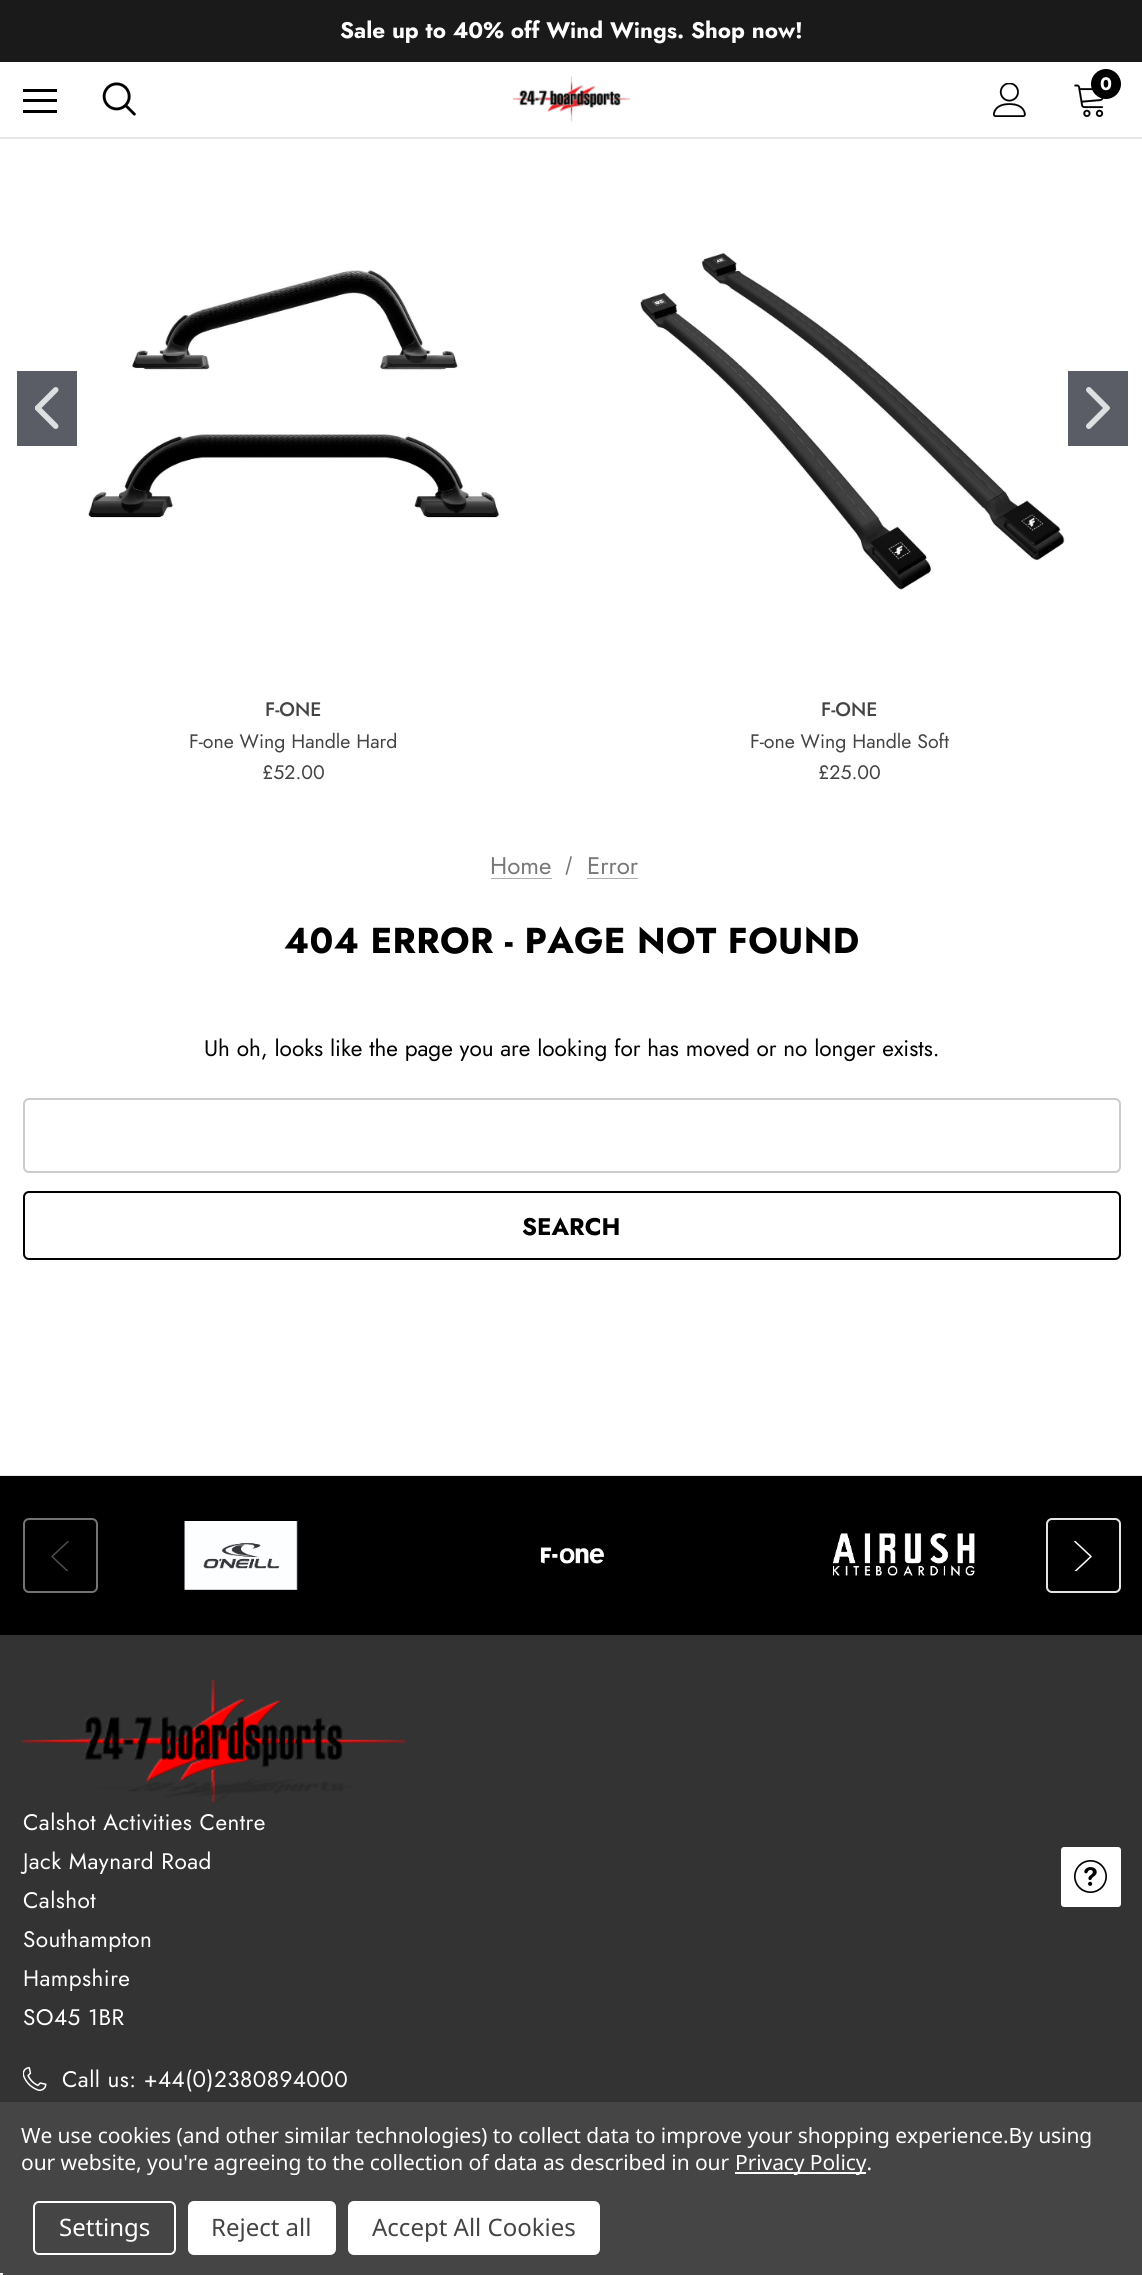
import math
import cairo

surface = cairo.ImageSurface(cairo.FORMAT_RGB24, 1142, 2275)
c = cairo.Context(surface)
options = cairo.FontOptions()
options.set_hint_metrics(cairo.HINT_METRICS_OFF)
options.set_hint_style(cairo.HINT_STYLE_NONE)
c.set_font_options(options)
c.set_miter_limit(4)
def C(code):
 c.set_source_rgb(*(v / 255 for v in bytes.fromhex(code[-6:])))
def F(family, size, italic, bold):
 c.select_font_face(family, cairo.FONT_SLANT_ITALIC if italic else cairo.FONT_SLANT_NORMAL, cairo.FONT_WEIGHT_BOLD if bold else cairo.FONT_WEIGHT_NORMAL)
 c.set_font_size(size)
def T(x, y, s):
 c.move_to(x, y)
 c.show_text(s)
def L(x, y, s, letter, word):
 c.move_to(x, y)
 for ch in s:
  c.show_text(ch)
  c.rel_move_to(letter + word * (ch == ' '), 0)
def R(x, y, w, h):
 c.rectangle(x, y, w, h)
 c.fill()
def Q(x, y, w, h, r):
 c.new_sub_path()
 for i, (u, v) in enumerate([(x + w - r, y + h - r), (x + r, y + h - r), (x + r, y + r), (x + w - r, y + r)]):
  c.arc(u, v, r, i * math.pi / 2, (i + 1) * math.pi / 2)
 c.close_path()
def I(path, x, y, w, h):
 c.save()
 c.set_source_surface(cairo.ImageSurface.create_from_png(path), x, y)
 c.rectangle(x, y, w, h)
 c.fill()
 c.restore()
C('ffffff')
c.paint()
C('1a1a1a')
R(0,0,1142,62)
F('Jost',22.5,0,1)
C('ffffff')
T(340,38,'Sale up to 40% off Wind Wings. Shop now!')
C('e6e6e6')
R(0,137,1142,2)
C('000000')
R(23,99,34,3)
R(23,89,34,3)
R(23,110,34,3)
I('1.png',102,82,34,34)
I('2.png',513,76,117,46)
I('3.png',993,83,33,34)
I('4.png',1074,84,30,33)
c.arc(1106,84,15,0,2 * math.pi)
c.fill()
F('Jost',18,0,1)
C('ffffff')
T(1100,90,'0')
C('5a5d66')
R(17,371,60,75)
I('5.png',35,387,24,42)
R(1068,371,60,75)
I('6.png',1086,387,24,42)
I('7.png',88,270,412,248)
F('Jost Medium',19.5,0,0)
C('444444')
T(265,716,'F-ONE')
F('Jost',19.5,0,0)
T(189,748,'F-one Wing Handle Hard')
T(262,779,'£52.00')
I('8.png',640,252,425,338)
F('Jost Medium',19.5,0,0)
T(821,716,'F-ONE')
F('Jost',19.5,0,0)
T(750,748,'F-one Wing Handle Soft')
T(818,779,'£25.00')
C('aeaeae')
R(491,878,61,1)
F('Jost',24,0,0)
C('787878')
T(490,874,'Home')
C('757575')
c.new_path()
c.move_to(570.5,856)
c.line_to(572,856.5)
c.line_to(567,875)
c.line_to(565.5,874.5)
c.close_path()
c.fill()
C('aeaeae')
R(587,878,51,1)
C('787878')
T(587,874,'Error')
F('Jost',36,0,1)
C('000000')
L(284,953,'404 ERROR - PAGE NOT FOUND',.4,0)
F('Jost',22.5,0,0)
T(204,1056,'Uh oh, looks like the page you are looking for has moved or no longer exists.')
Q(24,1099,1096,73,5)
C('cccccc')
c.stroke()
Q(24,1192,1096,67,5)
C('000000')
c.stroke()
F('Jost',24,0,1)
T(522,1235,'SEARCH')
C('333333')
R(0,1635,1142,467)
C('e6e6e6')
R(0,1475,1142,1)
C('000000')
R(0,1476,1142,159)
Q(24,1519,73,73,5)
C('737373')
c.stroke()
c.save()
c.rectangle(51,1541,18,30)
c.clip()
c.new_path()
c.move_to(68,1541.5)
c.line_to(52,1556.5)
c.line_to(68,1571.5)
C('4d4d4d')
c.set_line_width(1.5)
c.set_line_cap(cairo.LINE_CAP_ROUND)
c.set_line_join(cairo.LINE_JOIN_ROUND)
c.stroke()
c.restore()
I('9.png',184,1521,114,69)
I('10.png',540,1547,64,17)
I('11.png',833,1533,142,43)
Q(1047,1519,73,73,5)
C('e5e5e5')
c.stroke()
c.save()
c.rectangle(1074,1541,18,30)
c.clip()
c.new_path()
c.move_to(1075,1541.5)
c.line_to(1091,1556.5)
c.line_to(1075,1571.5)
C('ffffff')
c.set_line_width(1.5)
c.set_line_cap(cairo.LINE_CAP_ROUND)
c.set_line_join(cairo.LINE_JOIN_ROUND)
c.stroke()
c.restore()
I('12.png',22,1680,383,124)
F('Jost',22.5,0,0)
C('ffffff')
L(23,1830,'Calshot Activities Centre',.45,0)
L(23,1869,'Jack Maynard Road',.45,0)
L(23,1908,'Calshot',.45,0)
L(23,1947,'Southampton',.45,0)
L(23,1986,'Hampshire',.45,0)
L(23,2025,'SO45 1BR',.45,0)
I('13.png',23,2067,24,24)
L(62,2087,'Call us: +44(0)2380894000',.45,0)
Q(1061,1847,60,60,3)
c.fill()
I('14.png',1074,1860,33,33)
C('454545')
R(0,2102,1142,173)
F('Noto Sans',21,0,0)
C('ffffff')
L(21,2143,'We use cookies (and other similar technologies) to collect data to improve your shopping experience.By using',-.08,0)
L(21,2170,'our website, you\'re agreeing to the collection of data as described in our',-.08,0)
R(735,2172,131,2)
L(735,2170,'Privacy Policy.',-.08,0)
Q(34,2202,141,52,5)
c.stroke()
F('Noto Sans',24,0,0)
T(59,2236,'Settings')
Q(188,2201,148,54,6)
c.fill()
C('444444')
T(211,2236,'Reject all')
C('ffffff')
Q(348,2201,252,54,6)
c.fill()
C('444444')
T(372,2236,'Accept All Cookies')
C('f5f5f5')
R(0,2273,3,2)
surface.write_to_png('o.png')
